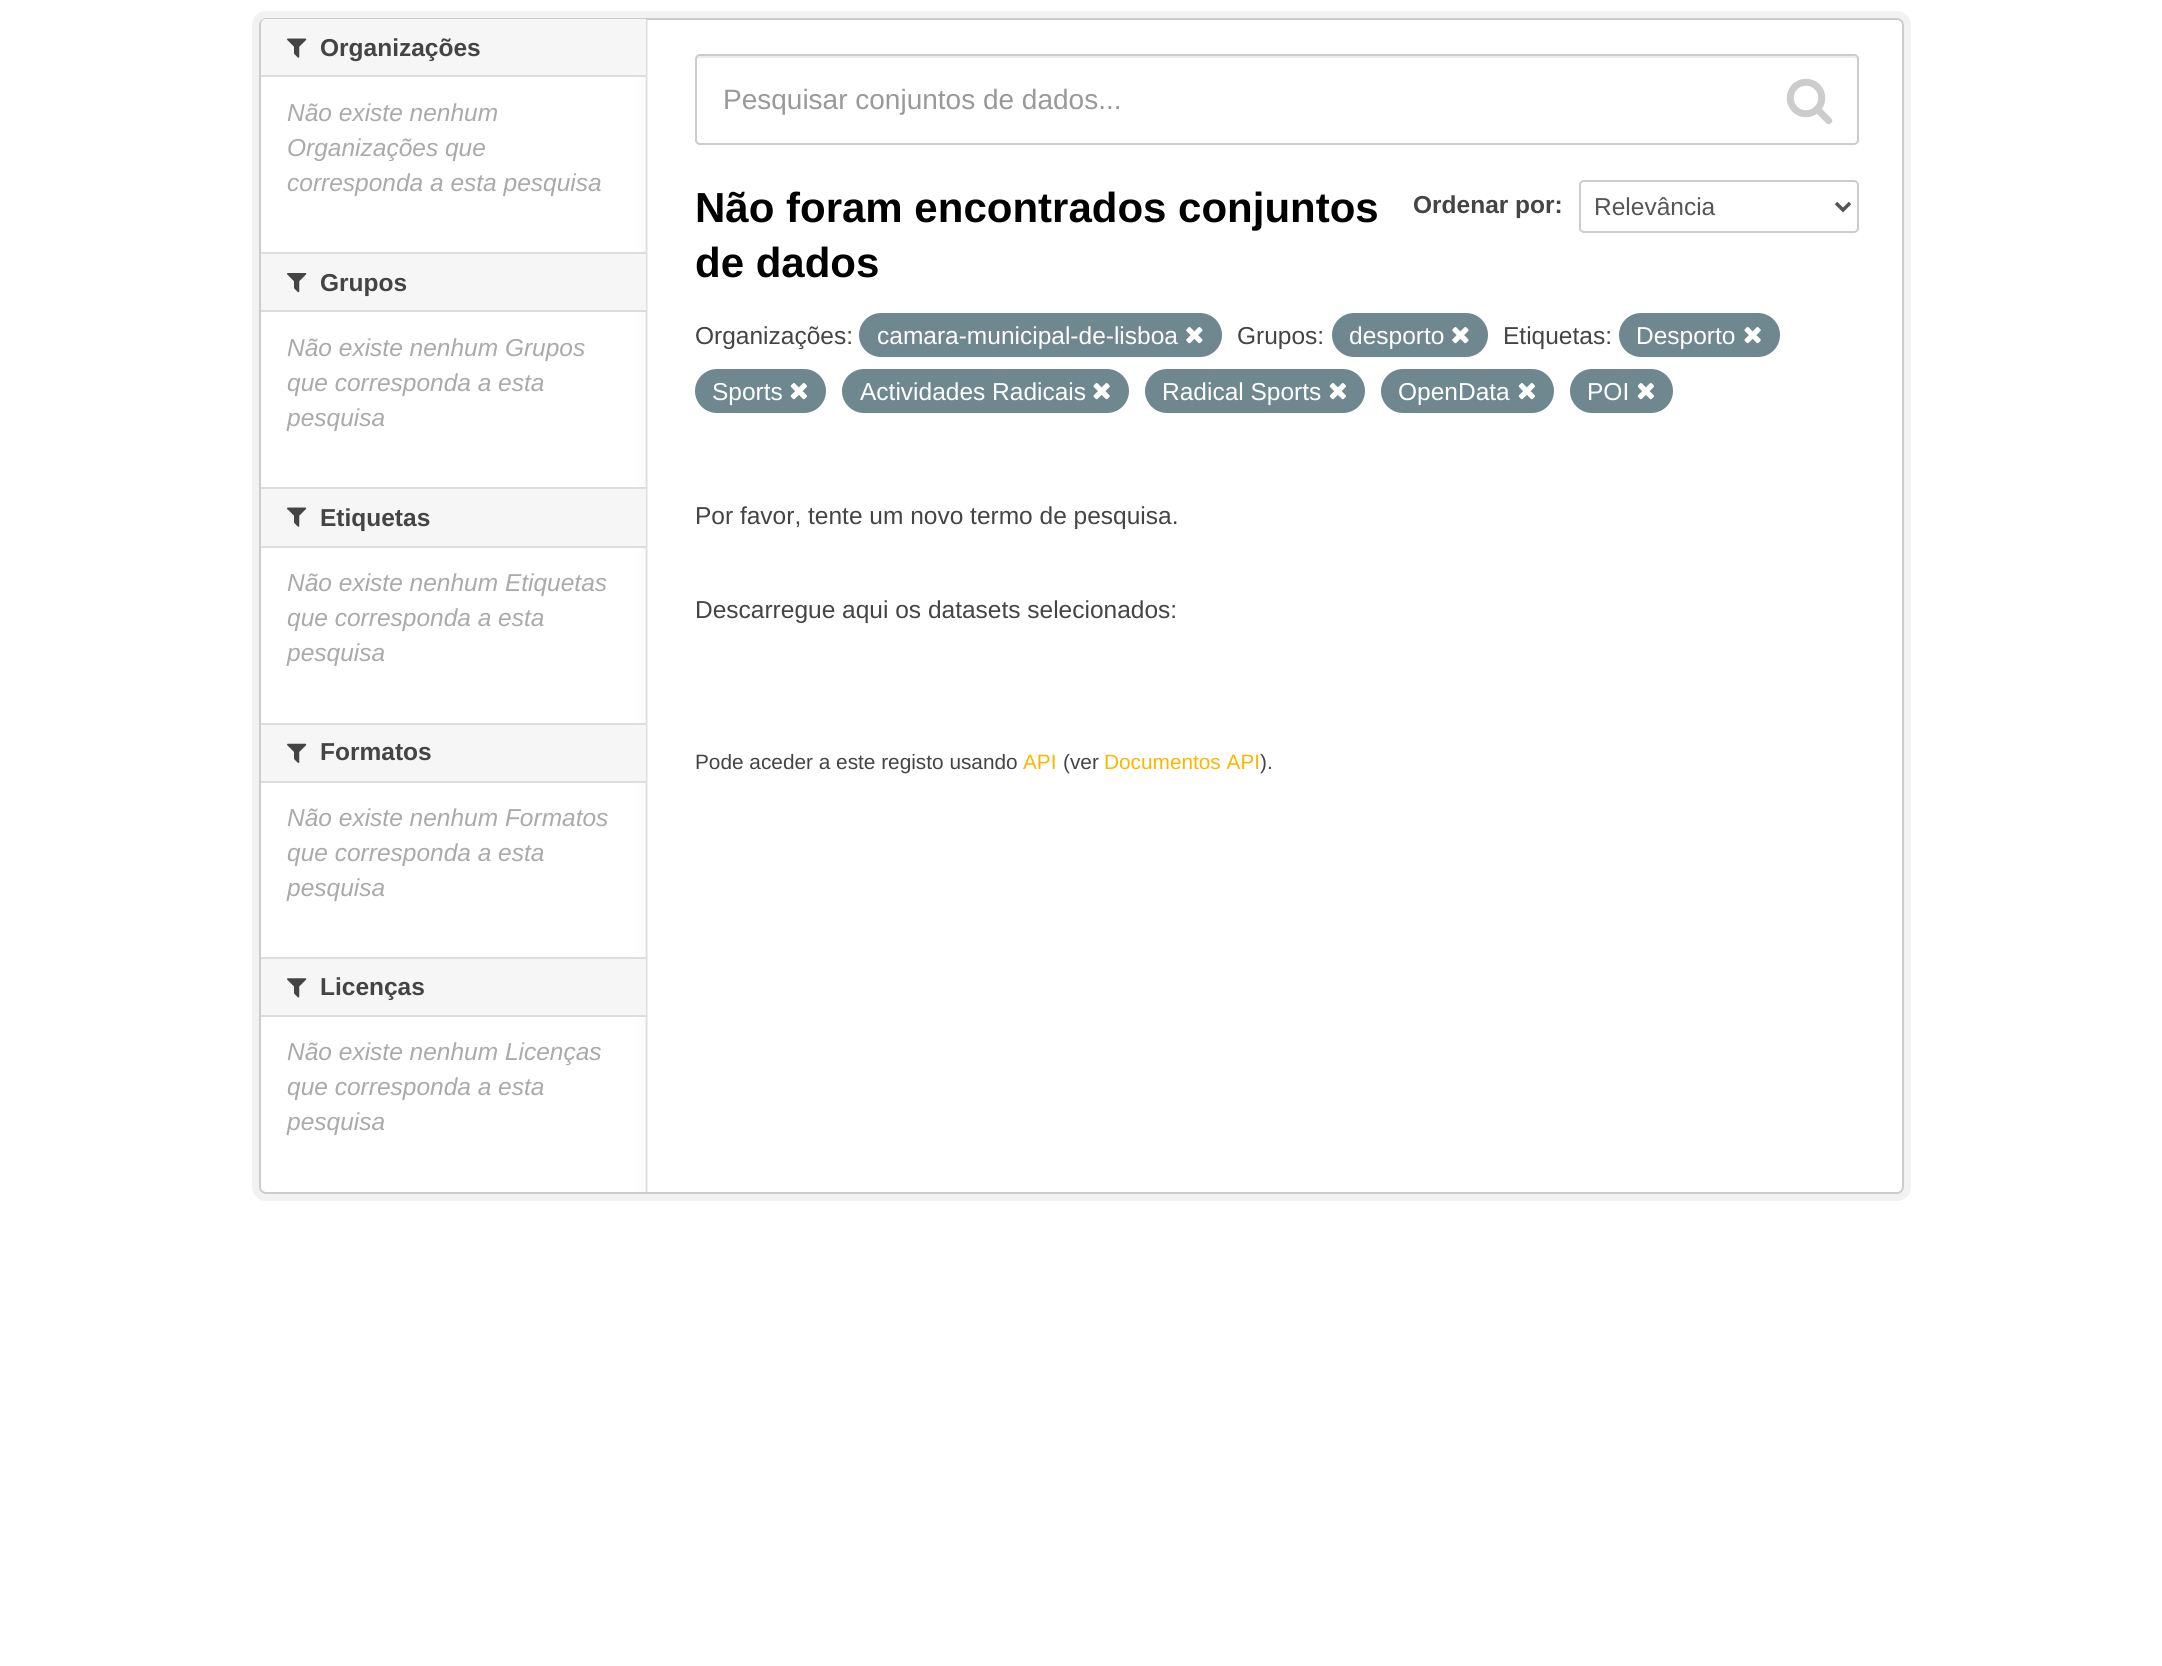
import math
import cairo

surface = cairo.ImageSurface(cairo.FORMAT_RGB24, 2162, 1666)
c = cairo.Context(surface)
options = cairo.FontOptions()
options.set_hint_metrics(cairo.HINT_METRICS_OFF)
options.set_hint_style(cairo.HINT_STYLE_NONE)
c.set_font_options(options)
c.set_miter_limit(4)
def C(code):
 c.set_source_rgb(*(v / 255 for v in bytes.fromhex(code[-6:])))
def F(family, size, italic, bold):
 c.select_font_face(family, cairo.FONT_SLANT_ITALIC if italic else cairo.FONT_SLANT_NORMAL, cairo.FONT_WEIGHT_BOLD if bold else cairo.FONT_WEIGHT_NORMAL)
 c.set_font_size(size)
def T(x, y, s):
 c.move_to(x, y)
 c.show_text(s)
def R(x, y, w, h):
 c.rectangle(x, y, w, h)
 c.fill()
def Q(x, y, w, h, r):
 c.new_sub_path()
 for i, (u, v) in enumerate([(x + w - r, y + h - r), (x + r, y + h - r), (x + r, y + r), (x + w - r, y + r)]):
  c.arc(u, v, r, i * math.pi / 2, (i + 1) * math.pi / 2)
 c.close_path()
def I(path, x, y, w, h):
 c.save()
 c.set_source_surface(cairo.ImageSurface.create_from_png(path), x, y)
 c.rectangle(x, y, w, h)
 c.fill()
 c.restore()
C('ffffff')
c.paint()
Q(255.5,14.5,1652,1183,10.5)
C('f2f2f2')
c.set_line_width(7)
c.stroke()
C('ffffff')
Q(259,18,1645,1176,7)
c.fill()
I('1.png',261,17,387,1177)
Q(260,19,1643,1174,6)
C('cccccc')
c.set_line_width(2)
c.stroke()
C('f6f6f6')
c.new_path()
c.move_to(266,19)
c.line_to(646,19)
c.line_to(646,77)
c.line_to(261,77)
c.line_to(261,24)
c.curve_to(261,21,263,19,266,19)
c.close_path()
c.fill()
C('dddddd')
R(261,75,385,2)
I('2.png',287,38,20,20)
F('Liberation Sans',24.5,0,1)
C('444444')
T(320,56,'Organizações')
F('Liberation Sans',24.5,1,0)
C('aaaaaa')
T(287,121,'Não existe nenhum')
T(287,156,'Organizações que')
T(287,191,'corresponda a esta pesquisa')
C('f6f6f6')
R(261,254,385,56)
C('dddddd')
R(261,252,385,2)
R(261,310,385,2)
I('3.png',287,273,20,20)
F('Liberation Sans',24.5,0,1)
C('444444')
T(320,291,'Grupos')
F('Liberation Sans',24.5,1,0)
C('aaaaaa')
T(287,356,'Não existe nenhum Grupos')
T(287,391,'que corresponda a esta')
T(287,426,'pesquisa')
C('f6f6f6')
R(261,489,385,57)
C('dddddd')
R(261,487,385,2)
R(261,546,385,2)
I('2.png',287,507,20,20)
F('Liberation Sans',24.5,0,1)
C('444444')
T(320,526,'Etiquetas')
F('Liberation Sans',24.5,1,0)
C('aaaaaa')
T(287,591,'Não existe nenhum Etiquetas')
T(287,626,'que corresponda a esta')
T(287,661,'pesquisa')
C('f6f6f6')
R(261,725,385,56)
C('dddddd')
R(261,723,385,2)
R(261,781,385,2)
I('4.png',287,743,20,20)
F('Liberation Sans',24.5,0,1)
C('444444')
T(320,760,'Formatos')
F('Liberation Sans',24.5,1,0)
C('aaaaaa')
T(287,826,'Não existe nenhum Formatos')
T(287,861,'que corresponda a esta')
T(287,896,'pesquisa')
C('f6f6f6')
R(261,959,385,56)
C('dddddd')
R(261,957,385,2)
R(261,1015,385,2)
I('5.png',287,978,20,20)
F('Liberation Sans',24.5,0,1)
C('444444')
T(320,995,'Licenças')
F('Liberation Sans',24.5,1,0)
C('aaaaaa')
T(287,1060,'Não existe nenhum Licenças')
T(287,1095,'que corresponda a esta')
T(287,1130,'pesquisa')
C('ececec')
c.new_path()
c.move_to(700,58)
c.line_to(1853,58)
c.curve_to(1855,58,1857,59,1857,61)
c.line_to(1857,60)
c.curve_to(1857,58,1855,56,1853,56)
c.line_to(701,56)
c.curve_to(699,56,698,57,697,59)
c.close_path()
c.fill()
Q(696,55,1162,89,4)
C('cccccc')
c.stroke()
F('Liberation Sans',28,0,0)
C('999999')
T(723,109,'Pesquisar conjuntos de dados...')
I('6.png',1786,78,47,47)
F('Liberation Sans',42,0,1)
C('000000')
T(695,222,'Não foram encontrados conjuntos')
T(695,277,'de dados')
F('Liberation Sans',24.5,0,1)
C('444444')
T(1413,213,'Ordenar por:')
Q(1580,181,278,51,4)
C('cccccc')
c.stroke()
c.new_path()
c.move_to(1836,203)
c.line_to(1843,210)
c.line_to(1850,203)
C('555555')
c.set_line_width(3.5)
c.stroke()
F('Liberation Sans',24.5,0,0)
T(1594,215,'Relevância')
C('444444')
T(695,344,'Organizações:')
C('6f8890')
Q(859,313,363,44,22)
c.fill()
C('ffffff')
T(877,344,'camara-municipal-de-lisboa')
I('7.png',1186,327,17,17)
C('444444')
T(1237,344,'Grupos:')
C('6f8890')
Q(1332,313,156,44,22)
c.fill()
C('ffffff')
T(1349,344,'desporto')
I('7.png',1452,327,17,17)
C('444444')
T(1503,344,'Etiquetas:')
C('6f8890')
Q(1619,313,161,44,22)
c.fill()
C('ffffff')
T(1636,344,'Desporto')
I('8.png',1744,327,17,17)
C('6f8890')
Q(695,369,131,44,22)
c.fill()
C('ffffff')
T(712,400,'Sports')
I('9.png',790,383,17,17)
C('6f8890')
Q(842,369,287,44,22)
c.fill()
C('ffffff')
T(860,400,'Actividades Radicais')
I('8.png',1093,383,17,17)
C('6f8890')
Q(1145,369,220,44,22)
c.fill()
C('ffffff')
T(1162,400,'Radical Sports')
I('9.png',1329,383,17,17)
C('6f8890')
Q(1381,369,173,44,22)
c.fill()
C('ffffff')
T(1398,400,'OpenData')
I('9.png',1518,383,17,17)
C('6f8890')
Q(1570,369,103,44,22)
c.fill()
C('ffffff')
T(1587,400,'POI')
I('9.png',1637,383,17,17)
C('444444')
T(695,524,'Por favor, tente um novo termo de pesquisa.')
T(695,618,'Descarregue aqui os datasets selecionados:')
F('Liberation Sans',20.8,0,0)
T(695,769,'Pode aceder a este registo usando')
C('fbb600')
T(1023,769,'API')
C('444444')
T(1063,769,'(ver')
C('fbb600')
T(1104,769,'Documentos API')
C('444444')
T(1260,769,').')
surface.write_to_png('o.png')
